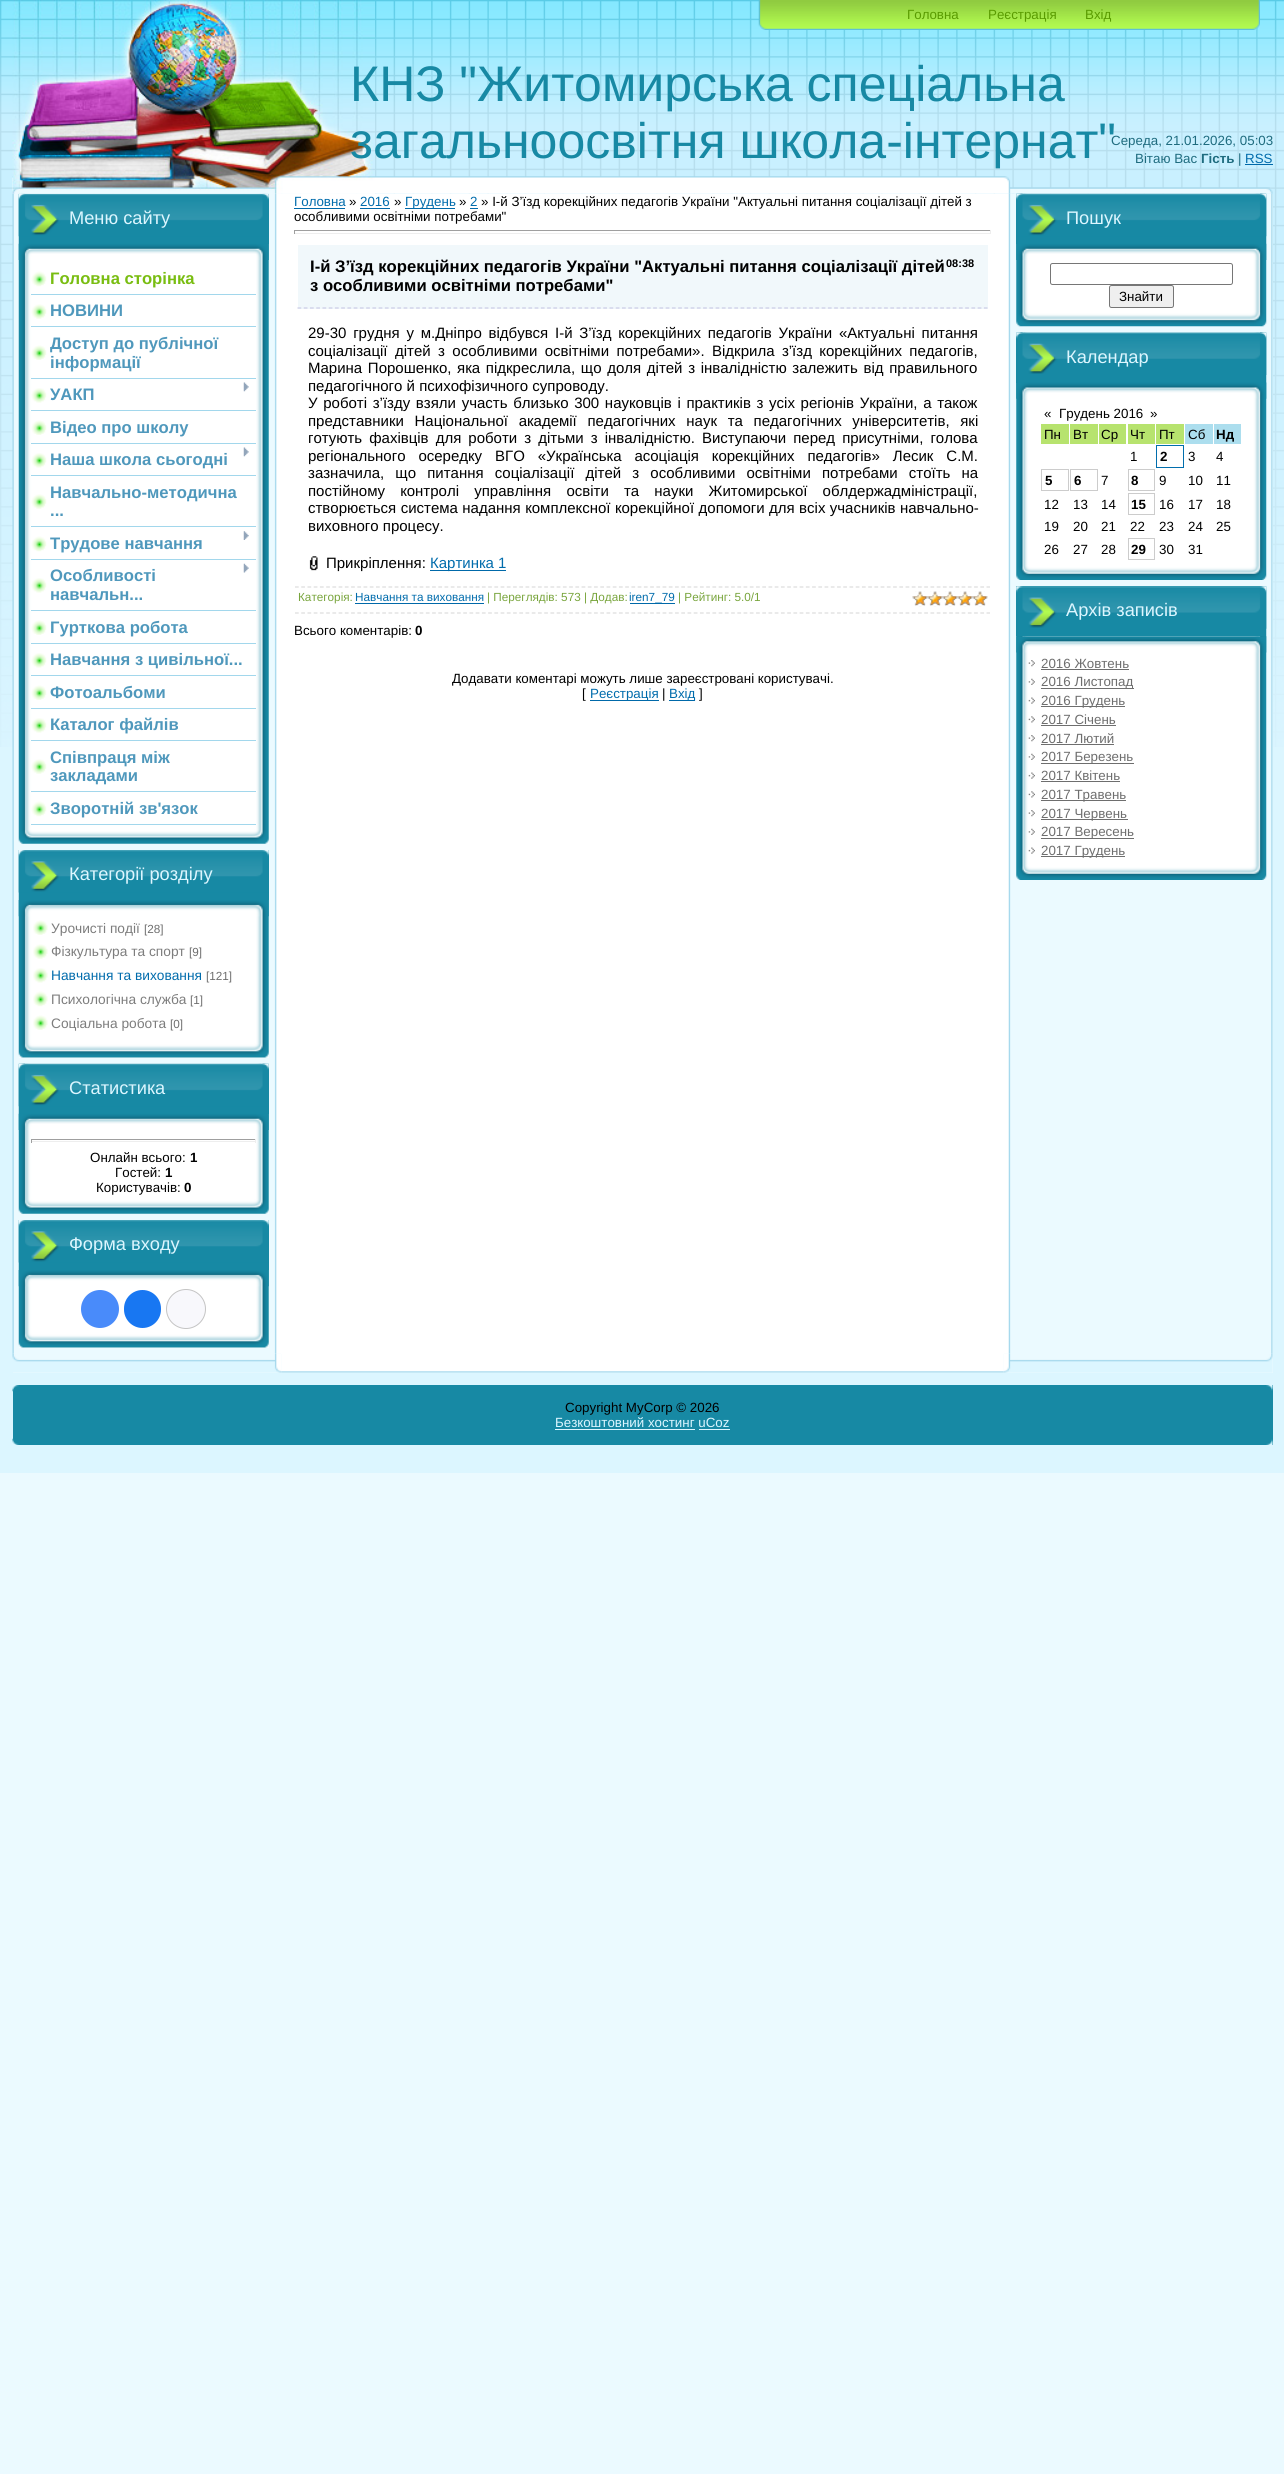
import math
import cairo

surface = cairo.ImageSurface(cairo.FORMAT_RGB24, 1284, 2474)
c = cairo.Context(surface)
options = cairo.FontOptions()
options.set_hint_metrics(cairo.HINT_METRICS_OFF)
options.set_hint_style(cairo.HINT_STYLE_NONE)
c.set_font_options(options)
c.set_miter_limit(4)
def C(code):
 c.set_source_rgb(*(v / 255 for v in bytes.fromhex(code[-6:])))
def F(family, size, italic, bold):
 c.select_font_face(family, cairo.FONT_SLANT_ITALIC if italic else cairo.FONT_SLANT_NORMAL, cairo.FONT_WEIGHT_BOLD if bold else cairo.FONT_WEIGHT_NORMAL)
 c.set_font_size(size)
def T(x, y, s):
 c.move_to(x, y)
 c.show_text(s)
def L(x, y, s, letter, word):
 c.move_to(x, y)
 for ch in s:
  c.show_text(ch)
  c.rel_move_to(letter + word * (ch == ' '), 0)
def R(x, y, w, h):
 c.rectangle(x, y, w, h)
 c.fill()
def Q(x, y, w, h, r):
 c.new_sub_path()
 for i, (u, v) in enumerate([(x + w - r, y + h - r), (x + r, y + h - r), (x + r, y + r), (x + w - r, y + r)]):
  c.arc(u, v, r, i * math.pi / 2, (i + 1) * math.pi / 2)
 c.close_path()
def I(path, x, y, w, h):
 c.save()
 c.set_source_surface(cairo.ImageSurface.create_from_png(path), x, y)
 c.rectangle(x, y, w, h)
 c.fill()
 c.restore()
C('ebfaff')
c.paint()
C('dcf6ff')
R(0,747,1284,726)
I('1.png',0,0,1284,747)
I('2.png',12,176,1261,18)
C('ebfaff')
R(13,194,1260,1179)
I('5.png',12,193,270,1161)
C('ffffff')
R(19,244,250,600)
I('6.png',18,193,251,651)
C('1789a4')
R(20,194,249,50)
I('7.png',18,193,251,44)
I('3.png',12,0,363,194)
I('4.png',758,0,502,30)
F('Liberation Sans',13.35,0,0)
C('599b00')
T(907,19,'Головна')
T(988,19,'Реєстрація')
T(1085,19,'Вхід')
F('Liberation Sans',50,0,0)
C('1789a4')
T(350,101,'КНЗ "Житомирська спеціальна')
F('Liberation Sans',13.35,0,0)
C('1f6c7f')
T(1111,145,'Середа, 21.01.2026, 05:03')
F('Liberation Sans',50,0,0)
C('1789a4')
T(350,158,'загальноосвітня школа-інтернат"')
F('Liberation Sans',13.35,0,0)
C('1f6c7f')
T(1135,163,'Вітаю Вас')
F('Liberation Sans',13.35,0,1)
T(1201,163,'Гість')
F('Liberation Sans',13.35,0,0)
T(1238,163,'|')
C('016cac')
T(1245,163,'RSS')
C('0069a9')
R(1245,164,28,1)
F('Liberation Sans',18.25,0,0)
C('dcf6ff')
T(69,224,'Меню сайту')
I('8.png',18,243,251,17)
I('9.png',31,271,16,16)
C('a2d7ec')
R(31,294,225,1)
F('Liberation Sans',16.65,0,1)
C('79bd11')
T(50,284,'Головна сторінка')
I('10.png',31,304,16,15)
C('a2d7ec')
R(31,326,225,1)
C('4f98bc')
T(50,316,'НОВИНИ')
I('11.png',31,345,16,15)
C('a2d7ec')
R(31,378,225,1)
C('4f98bc')
T(50,349,'Доступ до публічної')
T(50,368,'інформації')
I('12.png',31,388,16,15)
C('a2d7ec')
R(31,410,225,1)
I('13.png',243,382,6,10)
C('4f98bc')
T(50,400,'УАКП')
I('11.png',31,420,16,15)
C('a2d7ec')
R(31,443,225,1)
C('4f98bc')
T(50,433,'Відео про школу')
I('12.png',31,453,16,15)
C('a2d7ec')
R(31,475,225,1)
C('4f98bc')
T(50,465,'Наша школа сьогодні')
I('13.png',243,447,6,10)
I('10.png',31,494,16,15)
C('a2d7ec')
R(31,526,225,1)
C('4f98bc')
T(50,498,'Навчально-методична')
T(50,516,'...')
I('9.png',31,536,16,16)
C('a2d7ec')
R(31,559,225,1)
I('14.png',243,531,6,9)
C('4f98bc')
T(50,549,'Трудове навчання')
I('12.png',31,578,16,15)
C('a2d7ec')
R(31,610,225,1)
C('4f98bc')
T(50,581,'Особливості')
I('15.png',243,563,6,10)
T(50,600,'навчальн...')
I('11.png',31,620,16,15)
C('a2d7ec')
R(31,643,225,1)
C('4f98bc')
T(50,633,'Гурткова робота')
I('12.png',31,653,16,15)
C('a2d7ec')
R(31,675,225,1)
C('4f98bc')
T(50,665,'Навчання з цивільної...')
I('11.png',31,685,16,15)
C('a2d7ec')
R(31,708,225,1)
C('4f98bc')
T(50,698,'Фотоальбоми')
I('12.png',31,718,16,15)
C('a2d7ec')
R(31,740,225,1)
C('4f98bc')
T(50,730,'Каталог файлів')
I('10.png',31,759,16,15)
C('a2d7ec')
R(31,791,225,1)
C('4f98bc')
T(50,763,'Співпраця між')
T(50,781,'закладами')
I('9.png',31,801,16,16)
C('a2d7ec')
R(31,824,225,1)
C('4f98bc')
T(50,814,'Зворотній зв\'язок')
C('ffffff')
R(19,900,250,158)
I('16.png',18,850,251,208)
C('1789a4')
R(20,850,249,50)
I('17.png',18,850,251,43)
F('Liberation Sans',18.25,0,0)
C('dcf6ff')
T(69,880,'Категорії розділу')
I('18.png',18,900,251,17)
I('19.png',33,920,15,15)
F('Liberation Sans',13.75,0,0)
C('7d7d7d')
T(51,933,'Урочисті події')
F('Liberation Sans',11.75,0,0)
C('6e6e6e')
T(144,933,'[28]')
I('20.png',33,944,15,15)
F('Liberation Sans',13.75,0,0)
C('7d7d7d')
T(51,956,'Фізкультура та спорт')
F('Liberation Sans',11.75,0,0)
C('6e6e6e')
T(189,956,'[9]')
I('21.png',33,968,15,15)
F('Liberation Sans',13.75,0,0)
C('016cac')
T(51,980,'Навчання та виховання')
F('Liberation Sans',11.75,0,0)
C('6e6e6e')
T(206,980,'[121]')
I('22.png',33,991,15,16)
F('Liberation Sans',13.75,0,0)
C('7d7d7d')
T(51,1004,'Психологічна служба')
F('Liberation Sans',11.75,0,0)
C('6e6e6e')
T(190,1004,'[1]')
I('19.png',33,1015,15,15)
F('Liberation Sans',13.75,0,0)
C('7d7d7d')
T(51,1028,'Соціальна робота')
F('Liberation Sans',11.75,0,0)
C('6e6e6e')
T(170,1028,'[0]')
C('ffffff')
R(19,1114,250,100)
I('23.png',18,1063,251,151)
C('1789a4')
R(20,1064,249,50)
I('24.png',18,1063,251,44)
F('Liberation Sans',18.25,0,0)
C('dcf6ff')
T(69,1094,'Статистика')
I('8.png',18,1113,251,17)
C('9f9f9f')
R(31,1139,225,1)
C('eeeeee')
R(255,1139,1,4)
R(31,1141,225,1)
C('9f9f9f')
R(31,1139,1,4)
F('Liberation Sans',13.35,0,0)
C('000000')
T(90,1162,'Онлайн всього:')
F('Liberation Sans',13.35,0,1)
T(190,1162,'1')
F('Liberation Sans',13.35,0,0)
T(115,1177,'Гостей:')
F('Liberation Sans',13.35,0,1)
T(165,1177,'1')
F('Liberation Sans',13.35,0,0)
T(96,1192,'Користувачів:')
F('Liberation Sans',13.35,0,1)
T(184,1192,'0')
C('ffffff')
R(19,1270,250,78)
I('25.png',18,1220,251,128)
C('1789a4')
R(20,1220,249,50)
I('17.png',18,1220,251,43)
F('Liberation Sans',18.25,0,0)
C('dcf6ff')
T(69,1250,'Форма входу')
I('18.png',18,1270,251,17)
C('498bfa')
c.arc(100,1309,19,0,2 * math.pi)
c.fill()
C('1877f2')
Q(124,1290,37,38,18.5)
c.fill()
C('f8f8fc')
c.arc(186,1309,19.5,0,2 * math.pi)
c.fill_preserve()
C('c4c4c4')
c.set_line_width(1)
c.stroke()
C('ffffff')
R(281,194,723,1160)
F('Liberation Sans',13.35,0,0)
C('016cac')
T(294,206,'Головна')
C('0069a9')
R(294,208,51,1)
C('000000')
T(349,206,'»')
C('016cac')
T(360,206,'2016')
C('0069a9')
R(360,208,30,1)
C('000000')
T(394,206,'»')
C('0069a9')
R(405,208,50,1)
C('016cac')
T(405,206,'Грудень')
C('000000')
T(459,206,'»')
C('016cac')
T(470,206,'2')
C('0069a9')
R(470,208,8,1)
C('000000')
T(481,206,'» І-й З’їзд корекційних педагогів України "Актуальні питання соціалізації дітей з')
T(294,221,'особливими освітніми потребами"')
C('9f9f9f')
R(294,230,697,1)
C('eeeeee')
R(990,230,1,4)
R(294,233,697,1)
C('9f9f9f')
R(294,230,1,4)
C('f1f8fb')
R(298,245,690,64)
c.new_path()
c.move_to(297.5,308)
c.line_to(987.5,308)
C('cbcbe6')
c.set_line_width(1.2)
c.set_dash([3.75,2.49])
c.stroke()
F('Liberation Sans',16.65,0,1)
C('000000')
T(310,272,'І-й З’їзд корекційних педагогів України "Актуальні питання соціалізації дітей')
F('Liberation Sans',11,0,1)
T(946,267,'08:38')
F('Liberation Sans',16.65,0,1)
T(310,291,'з особливими освітніми потребами"')
F('Liberation Sans',15,0,0)
L(308,338,'29-30 грудня у м.Дніпро відбувся І-й З’їзд корекційних педагогів України «Актуальні питання',0,2.6)
L(308,356,'соціалізації дітей з особливими освітніми потребами». Відкрила з’їзд корекційних педагогів,',0,3.25)
L(308,373,'Марина Порошенко, яка підкреслила, що доля дітей з інвалідністю залежить від правильного',0,1.5)
T(308,391,'педагогічного й психофізичного супроводу.')
L(308,408,'У роботі з’їзду взяли участь близько 300 науковців і практиків з усіх регіонів України, а також',0,1.5)
L(308,426,'представники Національної академії педагогічних наук та педагогічних університетів, які',0,6.5)
L(308,443,'готують фахівців для роботи з дітьми з інвалідністю. Виступаючи перед присутніми, голова',0,2.9)
L(308,461,'регіонального осередку ВГО «Українська асоціація корекційних педагогів» Лесик С.М.',0,8.75)
L(308,478,'зазначила, що питання соціалізації дітей з особливими освітніми потребами стоїть на',0,7)
L(308,496,'постійному контролі управління освіти та науки Житомирської облдержадміністрації,',0,11)
L(308,513,'створюється система надання комплексної корекційної допомоги для всіх учасників навчально-',0,.25)
T(308,531,'виховного процесу.')
I('26.png',309,556,9,15)
T(326,568,'Прикріплення:')
C('0069a9')
R(430,570,76,1)
C('016cac')
T(430,568,'Картинка 1')
c.new_path()
c.move_to(295,587)
c.line_to(990,587)
C('dddddd')
c.set_dash([3.75,2.48])
c.stroke()
c.new_path()
c.move_to(295,613)
c.line_to(990,613)
c.stroke()
F('Liberation Sans',11.75,0,0)
C('79a53d')
T(298,601,'Категорія:')
C('016cac')
T(355,601,'Навчання та виховання')
C('0069a9')
R(355,603,129,1)
C('79a53d')
T(487,601,'| Переглядів: 573 | Додав:')
C('0069a9')
R(630,603,45,1)
C('016cac')
T(629,601,'iren7_79')
C('79a53d')
T(678,601,'| Рейтинг: 5.0/1')
I('27.png',912,591,76,16)
I('28.png',912,591,76,15)
F('Liberation Sans',13.35,0,0)
C('000000')
T(294,635,'Всього коментарів:')
F('Liberation Sans',13.35,0,1)
T(415,635,'0')
F('Liberation Sans',13.35,0,0)
T(452,683,'Додавати коментарі можуть лише зареєстровані користувачі.')
T(582,698,'[')
C('0069a9')
R(590,700,69,1)
C('016cac')
T(590,698,'Реєстрація')
C('000000')
T(662,698,'|')
C('0069a9')
R(669,700,26,1)
C('016cac')
T(669,698,'Вхід')
C('000000')
T(699,698,']')
I('29.png',1004,194,269,1160)
I('30.png',1016,193,251,134)
C('1789a4')
R(1016,194,249,50)
I('31.png',1016,193,251,44)
F('Liberation Sans',18.25,0,0)
C('dcf6ff')
T(1066,224,'Пошук')
I('32.png',1016,243,251,17)
Q(1050.5,263.5,182,21,2)
C('767676')
c.set_line_width(1)
c.set_dash([])
c.stroke()
C('efefef')
Q(1109.5,285.5,64,22,2)
c.fill_preserve()
C('767676')
c.stroke()
F('Liberation Sans',13.35,0,0)
C('000000')
T(1119,301,'Знайти')
I('33.png',1016,332,251,248)
C('1789a4')
R(1016,333,249,50)
I('34.png',1016,332,251,43)
F('Liberation Sans',18.25,0,0)
C('dcf6ff')
T(1066,363,'Календар')
I('35.png',1016,382,251,17)
F('Liberation Sans',13.35,0,0)
C('000000')
T(1044,418,'«')
T(1059,418,'Грудень 2016')
T(1150,418,'»')
C('b7e36e')
R(1041,424,28,20)
C('000000')
T(1044,439,'Пн')
C('b7e36e')
R(1070,424,28,20)
C('000000')
T(1073,439,'Вт')
C('b7e36e')
R(1099,424,27,20)
C('000000')
T(1101,439,'Ср')
C('b7e36e')
R(1128,424,27,20)
C('000000')
T(1130,439,'Чт')
C('b7e36e')
R(1156,424,28,20)
C('000000')
T(1159,439,'Пт')
C('acdeee')
R(1185,424,28,20)
C('000000')
T(1188,439,'Сб')
C('acdeee')
R(1214,424,27,20)
F('Liberation Sans',13.35,0,1)
C('000000')
T(1216,439,'Нд')
F('Liberation Sans',13.35,0,0)
T(1130,461,'1')
c.rectangle(1156.5,445.5,27,22)
C('016ead')
c.stroke()
F('Liberation Sans',13.35,0,1)
C('000000')
T(1160,461,'2')
F('Liberation Sans',13.35,0,0)
T(1188,461,'3')
T(1216,461,'4')
c.rectangle(1041.5,469.5,27,21)
C('cccccc')
c.stroke()
F('Liberation Sans',13.35,0,1)
C('000000')
T(1045,485,'5')
c.rectangle(1070.5,469.5,27,21)
C('cccccc')
c.stroke()
C('000000')
T(1074,485,'6')
F('Liberation Sans',13.35,0,0)
T(1101,485,'7')
c.rectangle(1128.5,469.5,26,21)
C('cccccc')
c.stroke()
F('Liberation Sans',13.35,0,1)
C('000000')
T(1131,485,'8')
F('Liberation Sans',13.35,0,0)
T(1159,485,'9')
T(1188,485,'10')
T(1216,485,'11')
T(1044,509,'12')
T(1073,509,'13')
T(1101,509,'14')
c.rectangle(1128.5,493.5,26,21)
C('cccccc')
c.stroke()
F('Liberation Sans',13.35,0,1)
C('000000')
T(1131,509,'15')
F('Liberation Sans',13.35,0,0)
T(1159,509,'16')
T(1188,509,'17')
T(1216,509,'18')
T(1044,531,'19')
T(1073,531,'20')
T(1101,531,'21')
T(1130,531,'22')
T(1159,531,'23')
T(1188,531,'24')
T(1216,531,'25')
T(1044,554,'26')
T(1073,554,'27')
T(1101,554,'28')
c.rectangle(1128.5,538.5,26,21)
C('cccccc')
c.stroke()
F('Liberation Sans',13.35,0,1)
C('000000')
T(1131,554,'29')
F('Liberation Sans',13.35,0,0)
T(1159,554,'30')
T(1188,554,'31')
I('36.png',1016,586,251,294)
C('1789a4')
R(1016,586,250,50)
I('37.png',1016,586,251,43)
F('Liberation Sans',18.25,0,0)
C('dcf6ff')
T(1066,616,'Архів записів')
I('38.png',1016,636,251,17)
I('39.png',1028,660,7,7)
F('Liberation Sans',13.35,0,0)
C('6e6e6e')
T(1041,668,'2016 Жовтень')
R(1041,669,88,1)
I('40.png',1028,678,7,7)
R(1041,688,93,1)
T(1041,686,'2016 Листопад')
I('41.png',1028,697,7,7)
R(1041,706,84,1)
T(1041,705,'2016 Грудень')
I('42.png',1028,716,7,7)
T(1041,724,'2017 Січень')
R(1041,725,75,1)
I('39.png',1028,735,7,7)
T(1041,743,'2017 Лютий')
R(1041,744,73,1)
I('40.png',1028,753,7,7)
R(1041,763,93,1)
T(1041,761,'2017 Березень')
I('41.png',1028,772,7,7)
T(1041,780,'2017 Квітень')
R(1041,781,79,1)
I('42.png',1028,791,7,7)
R(1041,800,85,1)
T(1041,799,'2017 Травень')
I('39.png',1028,810,7,7)
R(1041,819,87,1)
T(1041,818,'2017 Червень')
I('40.png',1028,828,7,7)
R(1041,838,93,1)
T(1041,836,'2017 Вересень')
I('41.png',1028,847,7,7)
R(1041,856,84,1)
T(1041,855,'2017 Грудень')
I('43.png',12,1353,270,20)
I('44.png',281,1354,723,19)
I('45.png',1003,1353,270,20)
C('1789a4')
R(13,1385,1260,60)
I('46.png',12,1385,7,7)
I('47.png',1266,1385,7,6)
I('48.png',1266,1439,7,6)
I('49.png',12,1438,7,7)
C('000000')
T(565,1412,'Copyright MyCorp © 2026')
C('dcf6ff')
T(555,1427,'Безкоштовний хостинг uCoz')
R(555,1429,140,1)
R(699,1429,31,1)
surface.write_to_png('o.png')
